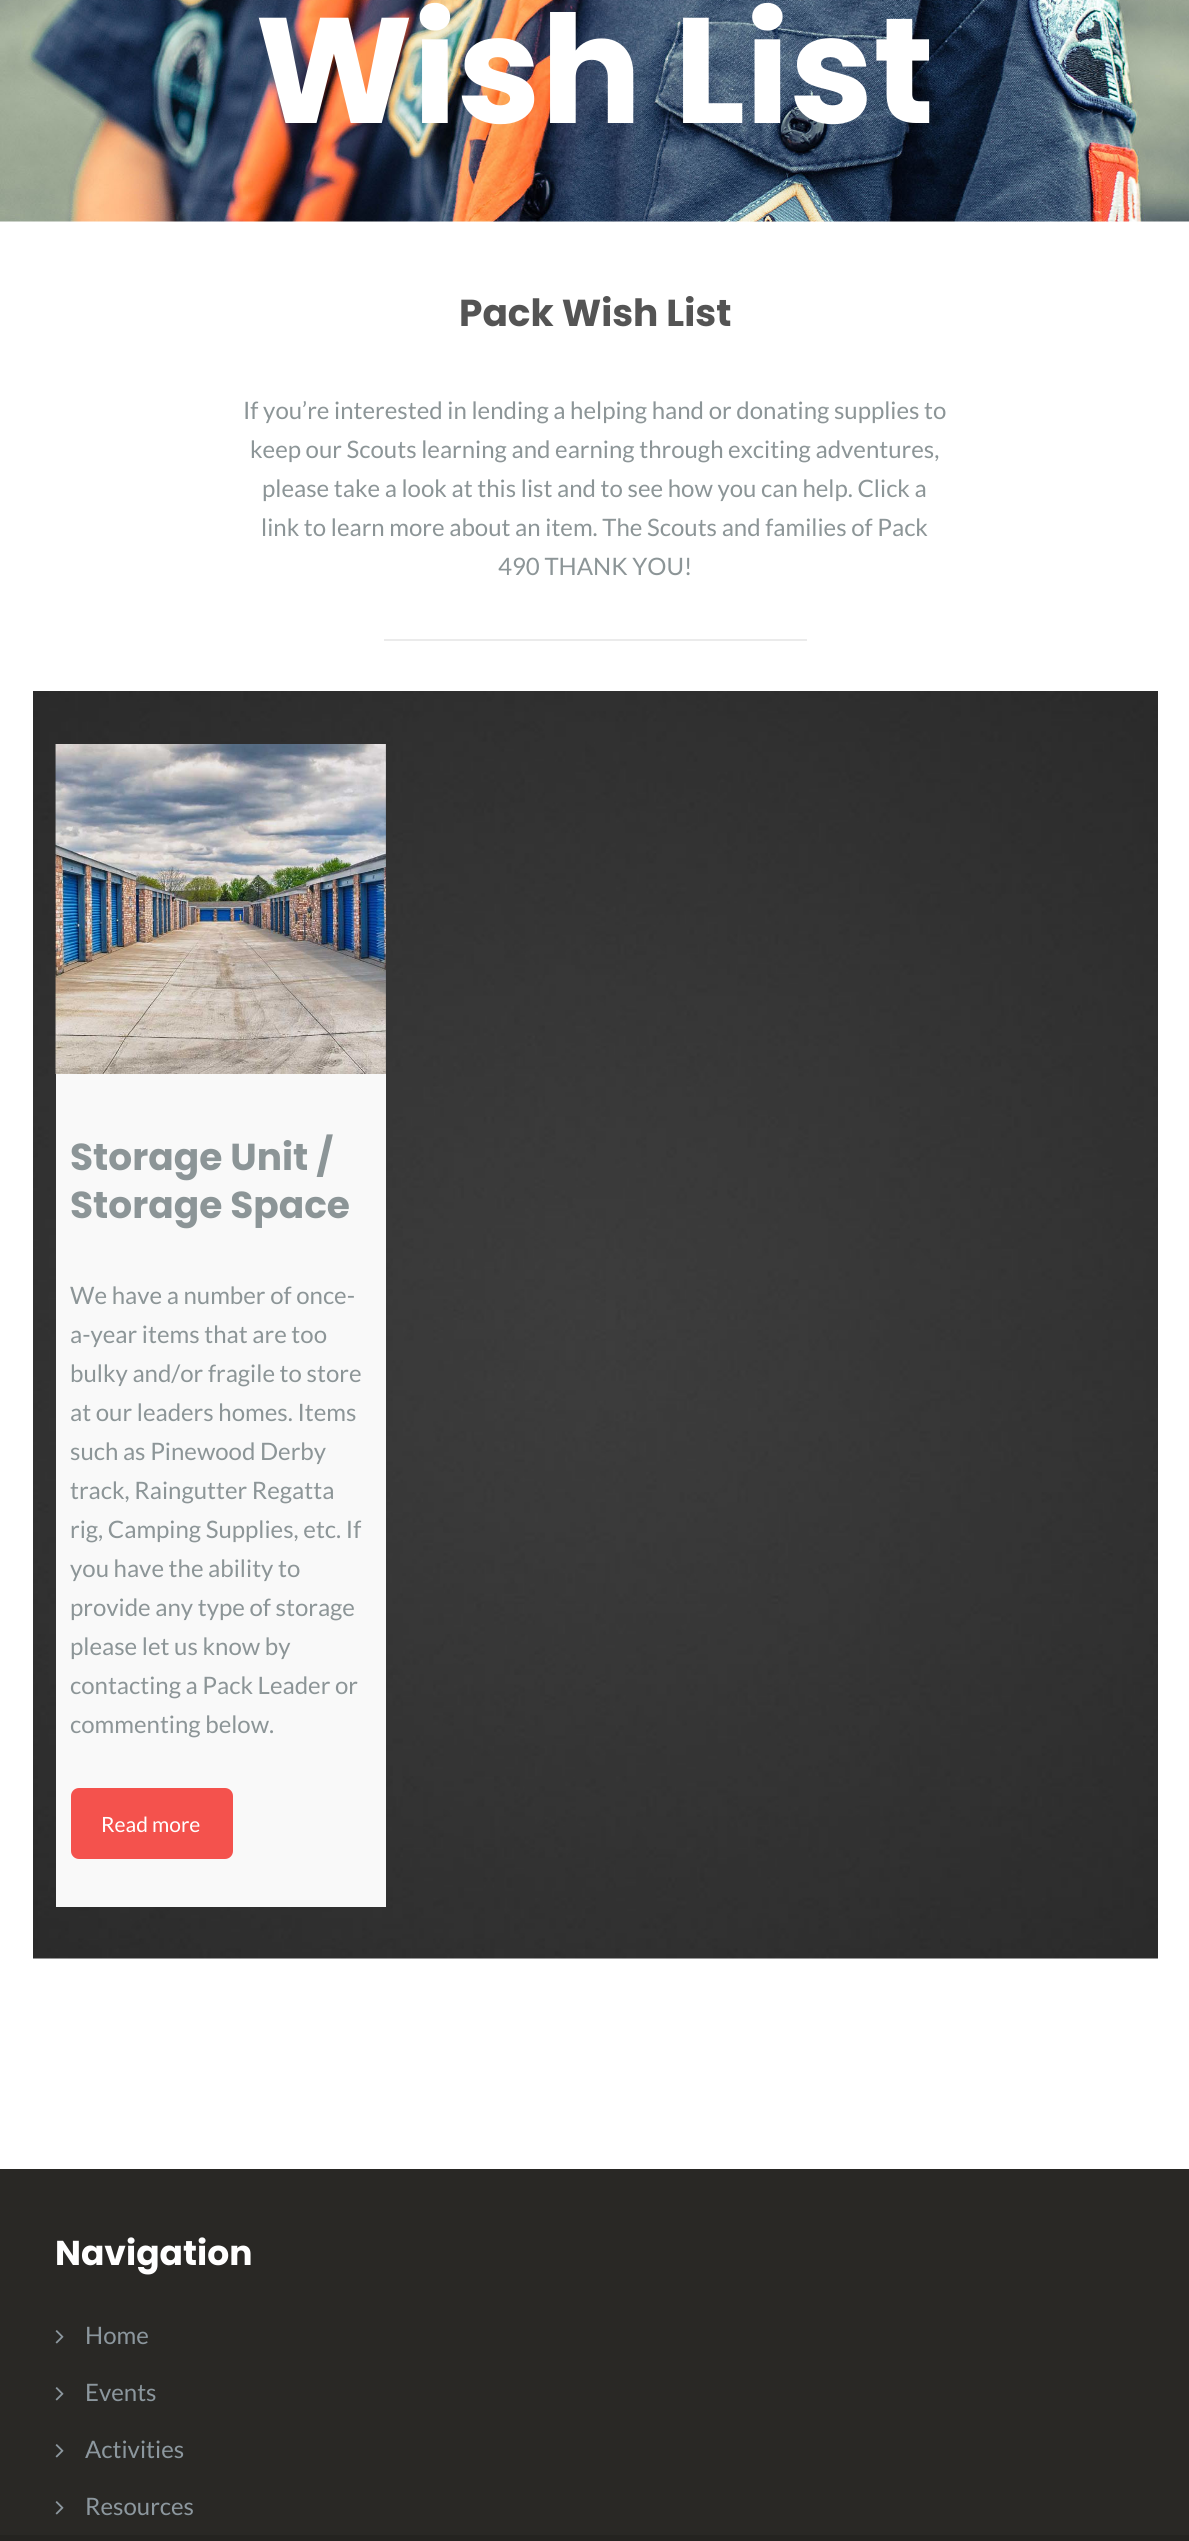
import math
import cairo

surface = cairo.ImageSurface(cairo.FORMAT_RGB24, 1189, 2541)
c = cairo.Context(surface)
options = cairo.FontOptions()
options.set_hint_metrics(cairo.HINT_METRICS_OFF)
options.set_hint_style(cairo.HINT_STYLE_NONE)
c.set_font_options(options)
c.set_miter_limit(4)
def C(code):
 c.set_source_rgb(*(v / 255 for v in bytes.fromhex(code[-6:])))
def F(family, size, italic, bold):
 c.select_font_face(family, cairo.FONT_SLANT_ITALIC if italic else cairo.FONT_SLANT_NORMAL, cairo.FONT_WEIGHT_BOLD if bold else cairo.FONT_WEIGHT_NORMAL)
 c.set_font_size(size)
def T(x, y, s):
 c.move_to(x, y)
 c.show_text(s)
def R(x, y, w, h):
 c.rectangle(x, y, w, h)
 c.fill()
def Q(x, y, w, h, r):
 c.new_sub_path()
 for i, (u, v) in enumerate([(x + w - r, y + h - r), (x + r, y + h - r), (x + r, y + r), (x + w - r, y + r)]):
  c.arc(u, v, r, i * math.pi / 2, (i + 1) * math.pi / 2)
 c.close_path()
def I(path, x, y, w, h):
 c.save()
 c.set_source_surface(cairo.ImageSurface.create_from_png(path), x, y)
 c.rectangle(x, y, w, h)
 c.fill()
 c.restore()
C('ffffff')
c.paint()
I('1.png',0,0,1189,222)
F('Poppins',150,0,1)
C('ffffff')
T(255,123,'Wish List')
F('Poppins',37.5,0,1)
C('545454')
T(459,326,'Pack Wish List')
F('Lato',24,0,0)
C('8c9597')
T(243,419,'If you’re interested in lending a helping hand or donating supplies to')
T(250,458,'keep our Scouts learning and earning through exciting adventures,')
T(262,497,'please take a look at this list and to see how you can help. Click a')
T(261,536,'link to learn more about an item. The Scouts and families of Pack')
T(498,575,'490 THANK YOU!')
C('ebebeb')
R(384,639,423,2)
I('2.png',33,691,1125,1268)
I('3.png',55,744,331,330)
C('f9f9f9')
R(56,1074,330,833)
F('Poppins',37.5,0,1)
C('8c9597')
T(70,1170,'Storage Unit /')
T(70,1218,'Storage Space')
F('Lato',24,0,0)
T(70,1304,'We have a number of once-')
T(70,1343,'a-year items that are too')
T(70,1382,'bulky and/or fragile to store')
T(70,1421,'at our leaders homes. Items')
T(70,1460,'such as Pinewood Derby')
T(70,1499,'track, Raingutter Regatta')
T(70,1538,'rig, Camping Supplies, etc. If')
T(70,1577,'you have the ability to')
T(70,1616,'provide any type of storage')
T(70,1655,'please let us know by')
T(70,1694,'contacting a Pack Leader or')
T(70,1733,'commenting below.')
C('f4524d')
Q(71,1788,162,71,8)
c.fill()
F('Lato',21,0,0)
C('ffffff')
T(101,1832,'Read more')
C('292825')
R(0,2169,1189,366)
F('Poppins',34.5,0,1)
C('ffffff')
T(55,2265,'Navigation')
I('4.png',55,2330,9,14)
F('Lato',24,0,0)
C('8c979e')
T(85,2344,'Home')
I('4.png',55,2387,9,14)
T(85,2401,'Events')
I('4.png',55,2444,9,14)
T(85,2458,'Activities')
I('4.png',55,2501,9,14)
T(85,2515,'Resources')
C('242320')
R(0,2535,1189,6)
surface.write_to_png('o.png')
